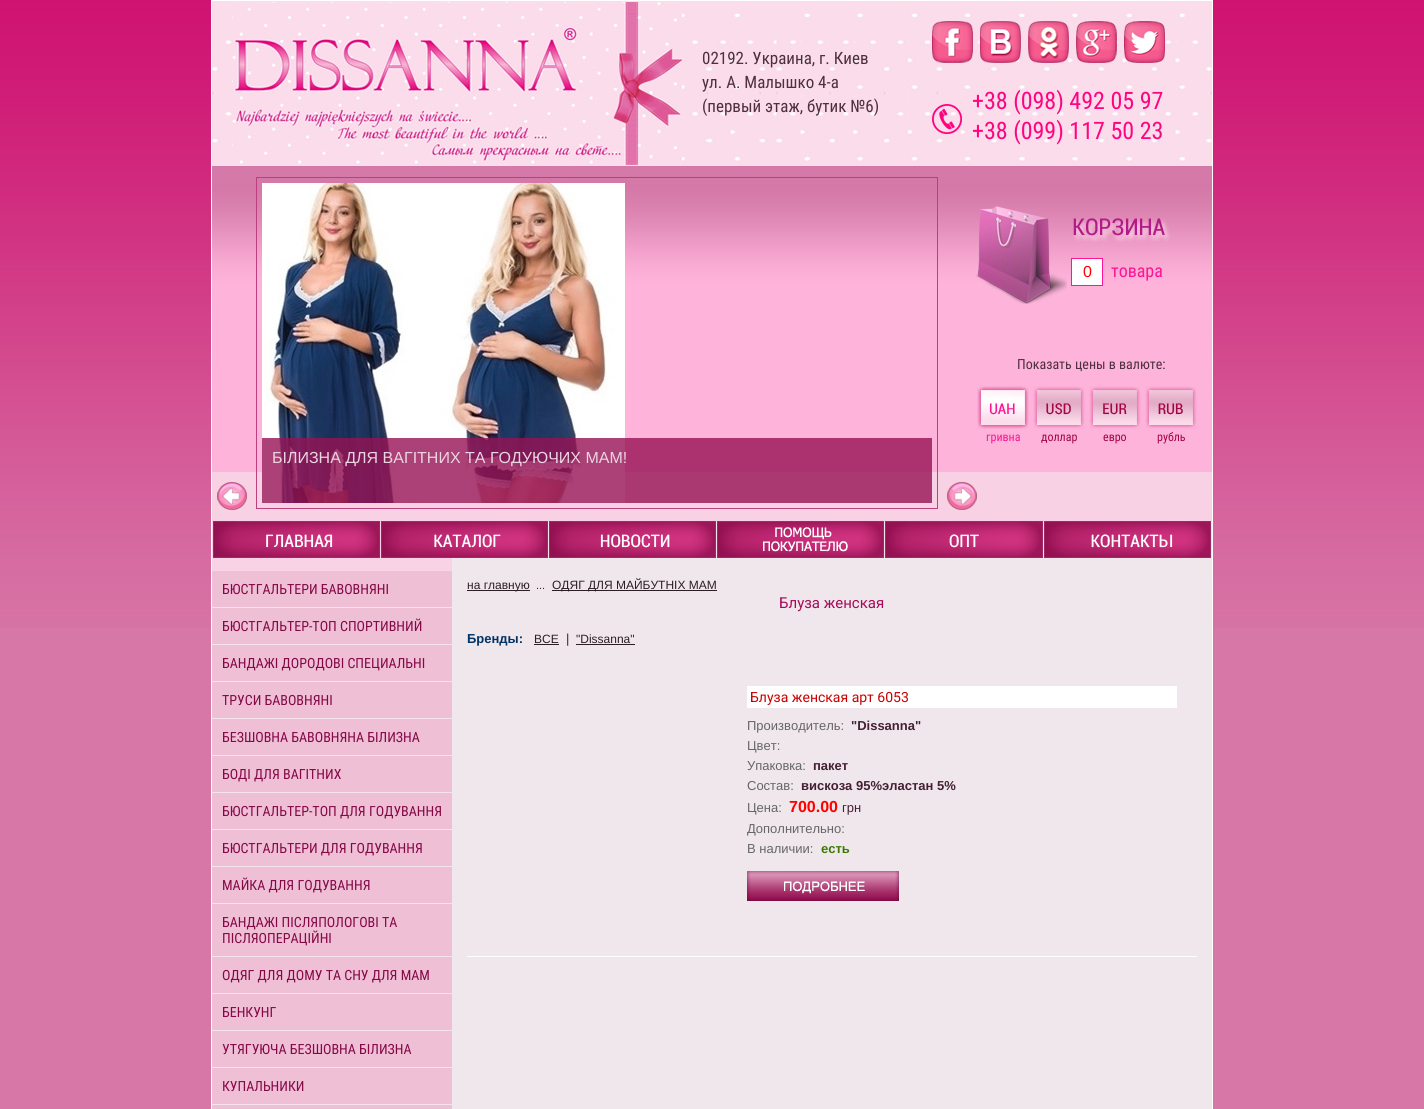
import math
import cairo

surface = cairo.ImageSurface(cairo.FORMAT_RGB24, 1424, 1109)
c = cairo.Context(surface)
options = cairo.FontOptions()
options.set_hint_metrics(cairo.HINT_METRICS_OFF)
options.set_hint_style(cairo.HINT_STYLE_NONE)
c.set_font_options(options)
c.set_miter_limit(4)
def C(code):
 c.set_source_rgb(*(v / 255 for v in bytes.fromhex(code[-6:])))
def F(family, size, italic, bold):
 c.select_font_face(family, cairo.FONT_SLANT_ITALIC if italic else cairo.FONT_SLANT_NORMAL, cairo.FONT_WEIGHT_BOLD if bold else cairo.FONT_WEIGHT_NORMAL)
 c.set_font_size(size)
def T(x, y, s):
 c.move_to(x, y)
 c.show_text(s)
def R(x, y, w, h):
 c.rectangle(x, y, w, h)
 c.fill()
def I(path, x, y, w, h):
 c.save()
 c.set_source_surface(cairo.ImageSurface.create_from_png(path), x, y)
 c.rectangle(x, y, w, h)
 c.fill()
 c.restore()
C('d777a7')
c.paint()
I('1.png',0,0,1424,628)
I('2.png',212,521,1000,588)
c.rectangle(211.5,.5,1001,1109)
C('ffffff')
c.set_line_width(1)
c.stroke()
I('3.png',212,1,1000,165)
I('4.png',232,2,450,163)
I('5.png',932,21,41,42)
I('6.png',980,21,41,42)
I('7.png',1028,21,41,42)
I('8.png',1076,21,41,42)
I('9.png',1124,21,41,42)
F('Roboto Condensed',17,0,0)
C('4d303f')
T(702,64,'02192. Украина, г. Киев')
T(702,88,'ул. А. Малышко 4-а')
T(702,112,'(первый этаж, бутик №6)')
I('10.png',932,104,30,30)
F('Roboto Condensed',24,0,0)
C('ff0481')
T(972,109,'+38 (098) 492 05 97')
T(972,139,'+38 (099) 117 50 23')
C('f8d2e4')
R(212,472,1000,49)
I('11.png',212,166,1000,306)
I('12.png',976,206,91,98)
I('13.png',1073,218,97,24)
C('ffffff')
c.rectangle(1071.5,258.5,31,27)
c.fill_preserve()
C('ff1493')
c.stroke()
F('Liberation Sans',16,0,0)
C('ff0000')
T(1083,277,'0')
F('Roboto Condensed',18,0,0)
C('ff1493')
T(1111,277,'товара')
F('Roboto Condensed',14,0,0)
C('4d303f')
T(1017,369,'Показать цены в валюте:')
I('14.png',977,386,52,43)
I('15.png',977,386,52,43)
F('Roboto Condensed',12,0,0)
C('ff1493')
T(986,441,'гривна')
I('16.png',1033,386,52,43)
C('a20645')
T(1041,441,'доллар')
I('17.png',1089,386,52,43)
T(1103,441,'евро')
I('18.png',1145,386,52,43)
T(1157,441,'рубль')
c.rectangle(256.5,177.5,681,331)
C('bc3f7e')
c.stroke()
I('19.png',262,183,363,320)
c.set_source_rgba(0.588,0.071,0.329,0.8)
R(262,438,670,65)
F('Liberation Sans',16,0,0)
C('ead5e0')
T(272,463,'БІЛИЗНА ДЛЯ ВАГІТНИХ ТА ГОДУЮЧИХ МАМ!')
I('20.png',217,482,30,28)
I('21.png',947,482,30,28)
I('22.png',213,521,167,37)
I('23.png',266,534,67,14)
I('22.png',381,521,167,37)
I('24.png',434,534,67,14)
I('22.png',549,521,167,37)
I('25.png',600,534,70,14)
I('22.png',717,521,167,37)
I('26.png',763,527,85,25)
I('27.png',885,521,158,37)
I('28.png',949,534,30,14)
I('22.png',1044,521,167,37)
I('29.png',1091,534,82,14)
C('efbfd6')
R(212,571,240,36)
C('f6e4ec')
R(212,607,240,1)
F('Roboto Condensed',14,0,0)
C('850846')
T(222,594,'БЮСТГАЛЬТЕРИ БАВОВНЯНІ')
C('efbfd6')
R(212,608,240,36)
C('f6e4ec')
R(212,644,240,1)
C('850846')
T(222,631,'БЮСТГАЛЬТЕР-ТОП CПОРТИВНИЙ')
C('efbfd6')
R(212,645,240,36)
C('f6e4ec')
R(212,681,240,1)
C('850846')
T(222,668,'БАНДАЖІ ДОРОДОВІ СПЕЦИАЛЬНІ')
C('efbfd6')
R(212,682,240,36)
C('f6e4ec')
R(212,718,240,1)
C('850846')
T(222,705,'ТРУСИ БАВОВНЯНІ')
C('efbfd6')
R(212,719,240,36)
C('f6e4ec')
R(212,755,240,1)
C('850846')
T(222,742,'БЕЗШОВНА БАВОВНЯНА БІЛИЗНА')
C('efbfd6')
R(212,756,240,36)
C('f6e4ec')
R(212,792,240,1)
C('850846')
T(222,779,'БОДІ ДЛЯ ВАГІТНИХ')
C('efbfd6')
R(212,793,240,36)
C('f6e4ec')
R(212,829,240,1)
C('850846')
T(222,816,'БЮСТГАЛЬТЕР-ТОП ДЛЯ ГОДУВАННЯ')
C('efbfd6')
R(212,830,240,36)
C('f6e4ec')
R(212,866,240,1)
C('850846')
T(222,853,'БЮСТГАЛЬТЕРИ ДЛЯ ГОДУВАННЯ')
C('efbfd6')
R(212,867,240,36)
C('f6e4ec')
R(212,903,240,1)
C('850846')
T(222,890,'МАЙКА ДЛЯ ГОДУВАННЯ')
C('efbfd6')
R(212,904,240,52)
C('f6e4ec')
R(212,956,240,1)
C('850846')
T(222,927,'БАНДАЖІ ПІСЛЯПОЛОГОВІ ТА')
T(222,943,'ПІСЛЯОПЕРАЦІЙНІ')
C('efbfd6')
R(212,957,240,36)
C('f6e4ec')
R(212,993,240,1)
C('850846')
T(222,980,'ОДЯГ ДЛЯ ДОМУ ТА СНУ ДЛЯ МАМ')
C('efbfd6')
R(212,994,240,36)
C('f6e4ec')
R(212,1030,240,1)
C('850846')
T(222,1017,'БЕНКУНГ')
C('efbfd6')
R(212,1031,240,36)
C('f6e4ec')
R(212,1067,240,1)
C('850846')
T(222,1054,'УТЯГУЮЧА БЕЗШОВНА БІЛИЗНА')
C('efbfd6')
R(212,1068,240,36)
C('f6e4ec')
R(212,1104,240,1)
C('850846')
T(222,1091,'КУПАЛЬНИКИ')
C('efbfd6')
R(212,1105,240,4)
C('2b1e24')
R(467,590,63,1)
F('Liberation Sans',12,0,0)
T(467,589,'на главную')
F('Liberation Sans',11,0,0)
C('442032')
T(536,589,'...')
C('2b1e24')
R(552,590,165,1)
F('Liberation Sans',12,0,0)
T(552,589,'ОДЯГ ДЛЯ МАЙБУТНІХ МАМ')
F('Roboto',15,0,0)
C('a60a58')
T(779,608,'Блуза женская')
F('Liberation Sans',13,0,1)
C('003366')
T(467,643,'Бренды:')
F('Liberation Sans',12,0,0)
C('2b1e24')
T(534,643,'ВСЕ')
R(534,644,25,1)
F('Liberation Sans',13,0,0)
C('442032')
T(566,643,'|')
F('Liberation Sans',12,0,0)
C('2b1e24')
T(576,643,'"Dissanna"')
R(576,644,59,1)
C('ffffff')
R(747,686,430,22)
F('Roboto',14,0,0)
C('cc0000')
T(750,702,'Блуза женская арт 6053')
F('Liberation Sans',13,0,0)
C('666666')
T(747,730,'Производитель:')
F('Liberation Sans',13,0,1)
C('442032')
T(851,730,'"Dissanna"')
F('Liberation Sans',13,0,0)
C('666666')
T(747,750,'Цвет:')
T(747,770,'Упаковка:')
F('Liberation Sans',13,0,1)
C('442032')
T(813,770,'пакет')
F('Liberation Sans',13,0,0)
C('666666')
T(747,790,'Состав:')
F('Liberation Sans',13,0,1)
C('442032')
T(801,790,'вискоза 95%эластан 5%')
F('Liberation Sans',13,0,0)
C('666666')
T(747,812,'Цена:')
F('Liberation Sans',16,0,1)
C('ff0000')
T(789,812,'700.00')
F('Liberation Sans',13,0,0)
C('442032')
T(842,812,'грн')
C('666666')
T(747,833,'Дополнительно:')
T(747,853,'В наличии:')
F('Liberation Sans',13,0,1)
C('3b7b02')
T(821,853,'есть')
I('30.png',747,871,152,30)
C('ffffff')
R(467,956,730,1)
surface.write_to_png('o.png')
